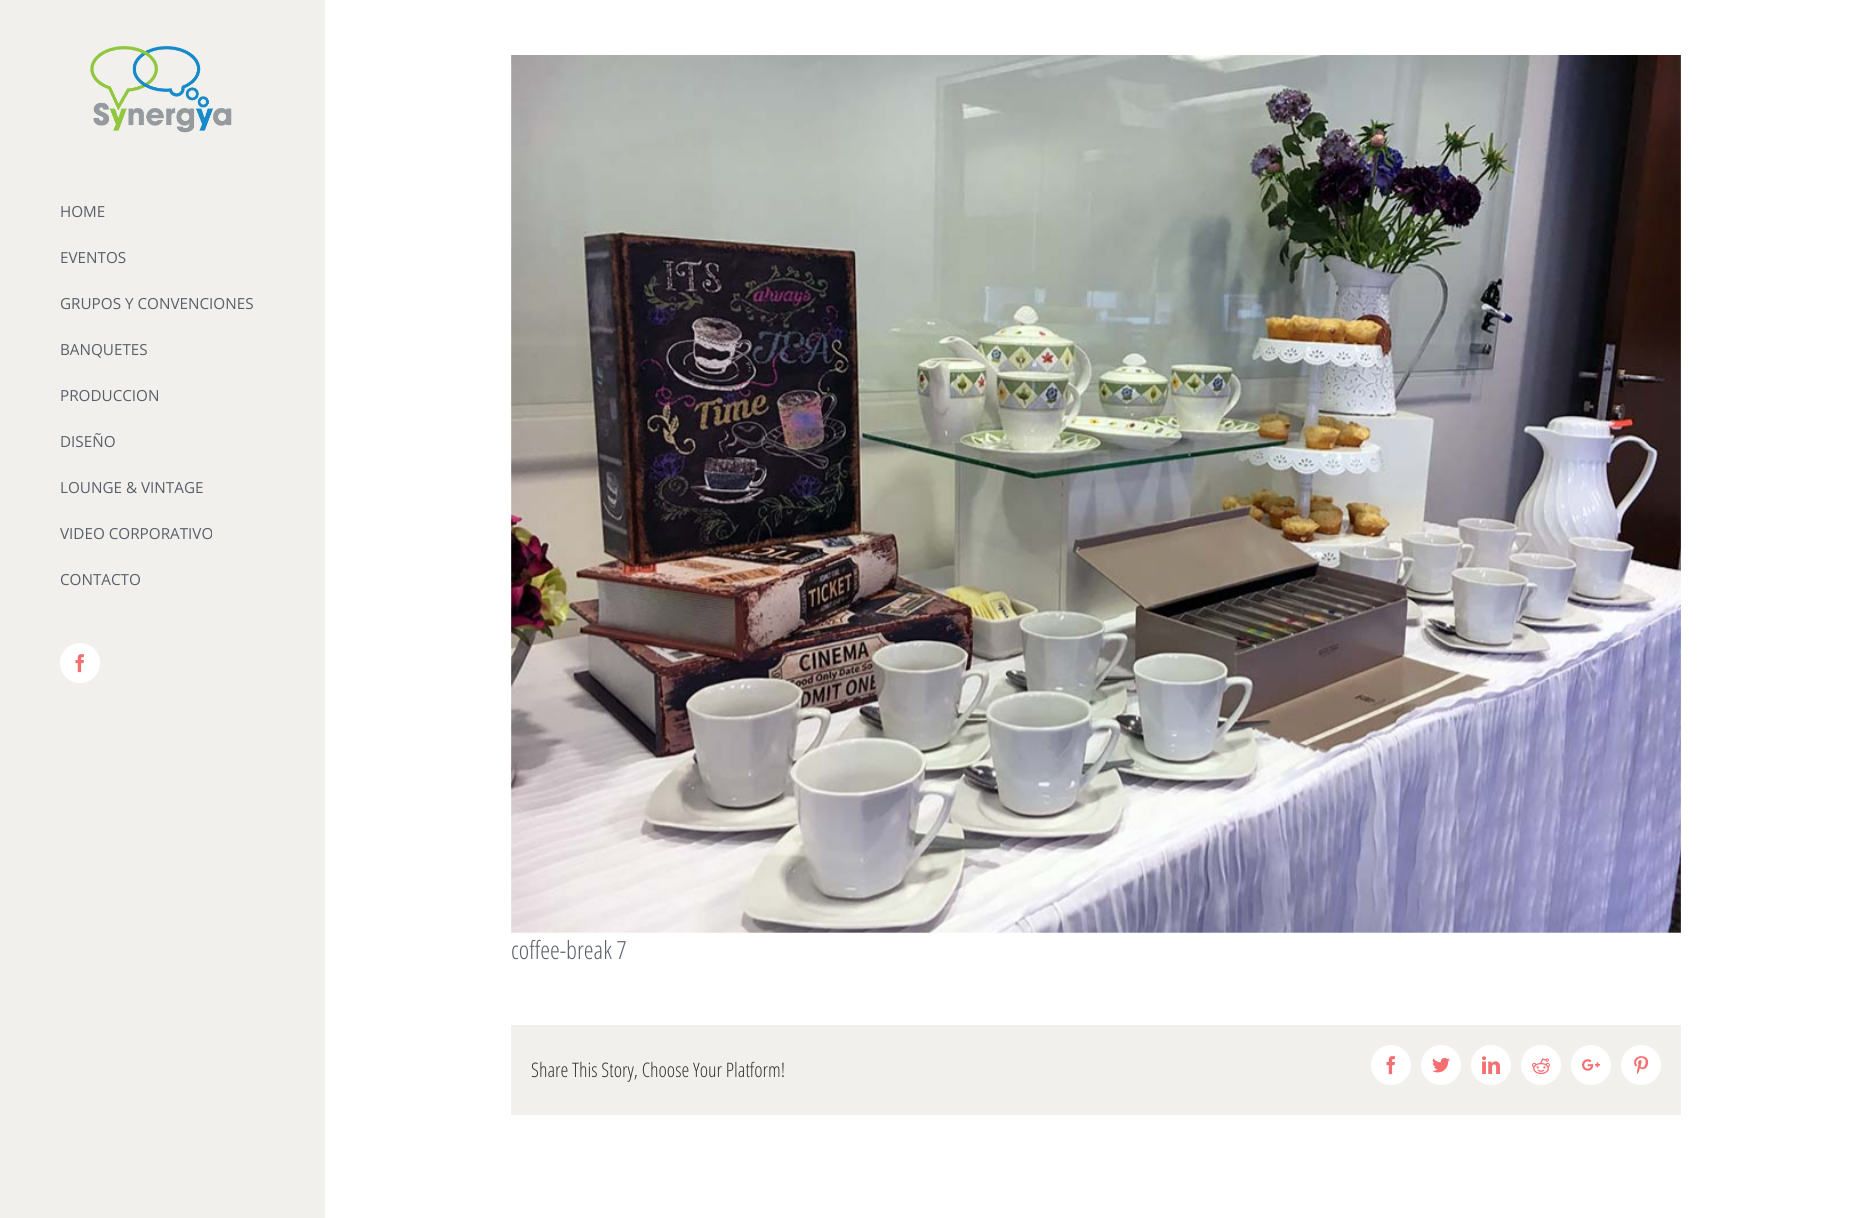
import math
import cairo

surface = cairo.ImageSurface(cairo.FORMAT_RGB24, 1866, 1218)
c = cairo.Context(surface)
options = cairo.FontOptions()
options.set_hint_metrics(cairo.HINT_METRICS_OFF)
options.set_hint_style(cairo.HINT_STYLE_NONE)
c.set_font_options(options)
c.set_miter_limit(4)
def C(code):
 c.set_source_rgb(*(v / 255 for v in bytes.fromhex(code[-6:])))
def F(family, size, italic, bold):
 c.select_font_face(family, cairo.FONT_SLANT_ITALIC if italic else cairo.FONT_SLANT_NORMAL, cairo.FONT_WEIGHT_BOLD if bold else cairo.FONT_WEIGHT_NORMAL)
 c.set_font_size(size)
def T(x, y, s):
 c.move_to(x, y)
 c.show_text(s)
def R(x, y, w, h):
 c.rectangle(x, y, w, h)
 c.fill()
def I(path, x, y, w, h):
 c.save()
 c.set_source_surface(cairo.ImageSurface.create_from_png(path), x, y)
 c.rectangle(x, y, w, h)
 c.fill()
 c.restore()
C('ffffff')
c.paint()
C('f1f0ec')
R(0,0,325,1218)
I('1.png',90,46,142,87)
F('Open Sans',15.25,0,0)
C('595f6b')
T(60,217,'HOME')
T(60,263,'EVENTOS')
T(60,309,'GRUPOS Y CONVENCIONES')
T(60,355,'BANQUETES')
T(60,401,'PRODUCCION')
T(60,447,'DISEÑO')
T(60,493,'LOUNGE & VINTAGE')
T(60,539,'VIDEO CORPORATIVO')
T(60,585,'CONTACTO')
C('ffffff')
c.new_path()
c.arc(80,663,19.5,0,2 * math.pi)
c.fill_preserve()
c.set_line_width(1)
c.stroke()
I('2.png',75,654,9,19)
I('3.png',511,55,1170,878)
F('Open Sans Condensed Light',25,0,0)
C('595f6b')
T(511,959,'coffee-break 7')
C('f1f0ec')
R(511,1025,1170,90)
F('Open Sans Condensed Light',20,0,0)
C('333333')
T(531,1077,'Share This Story, Choose Your Platform!')
C('ffffff')
c.new_path()
c.arc(1391,1065,19.5,0,2 * math.pi)
c.fill_preserve()
c.stroke()
I('2.png',1386,1056,9,19)
c.arc(1441,1065,19.5,0,2 * math.pi)
c.fill_preserve()
c.stroke()
I('4.png',1432,1057,18,16)
c.arc(1491,1065,19.5,0,2 * math.pi)
c.fill_preserve()
c.stroke()
I('5.png',1482,1056,18,18)
c.arc(1541,1065,19.5,0,2 * math.pi)
c.fill_preserve()
c.stroke()
I('6.png',1532,1058,18,17)
c.arc(1591,1065,19.5,0,2 * math.pi)
c.fill_preserve()
c.stroke()
I('7.png',1582,1059,18,12)
c.arc(1641,1065,19.5,0,2 * math.pi)
c.fill_preserve()
c.stroke()
I('8.png',1634,1056,15,18)
surface.write_to_png('o.png')
